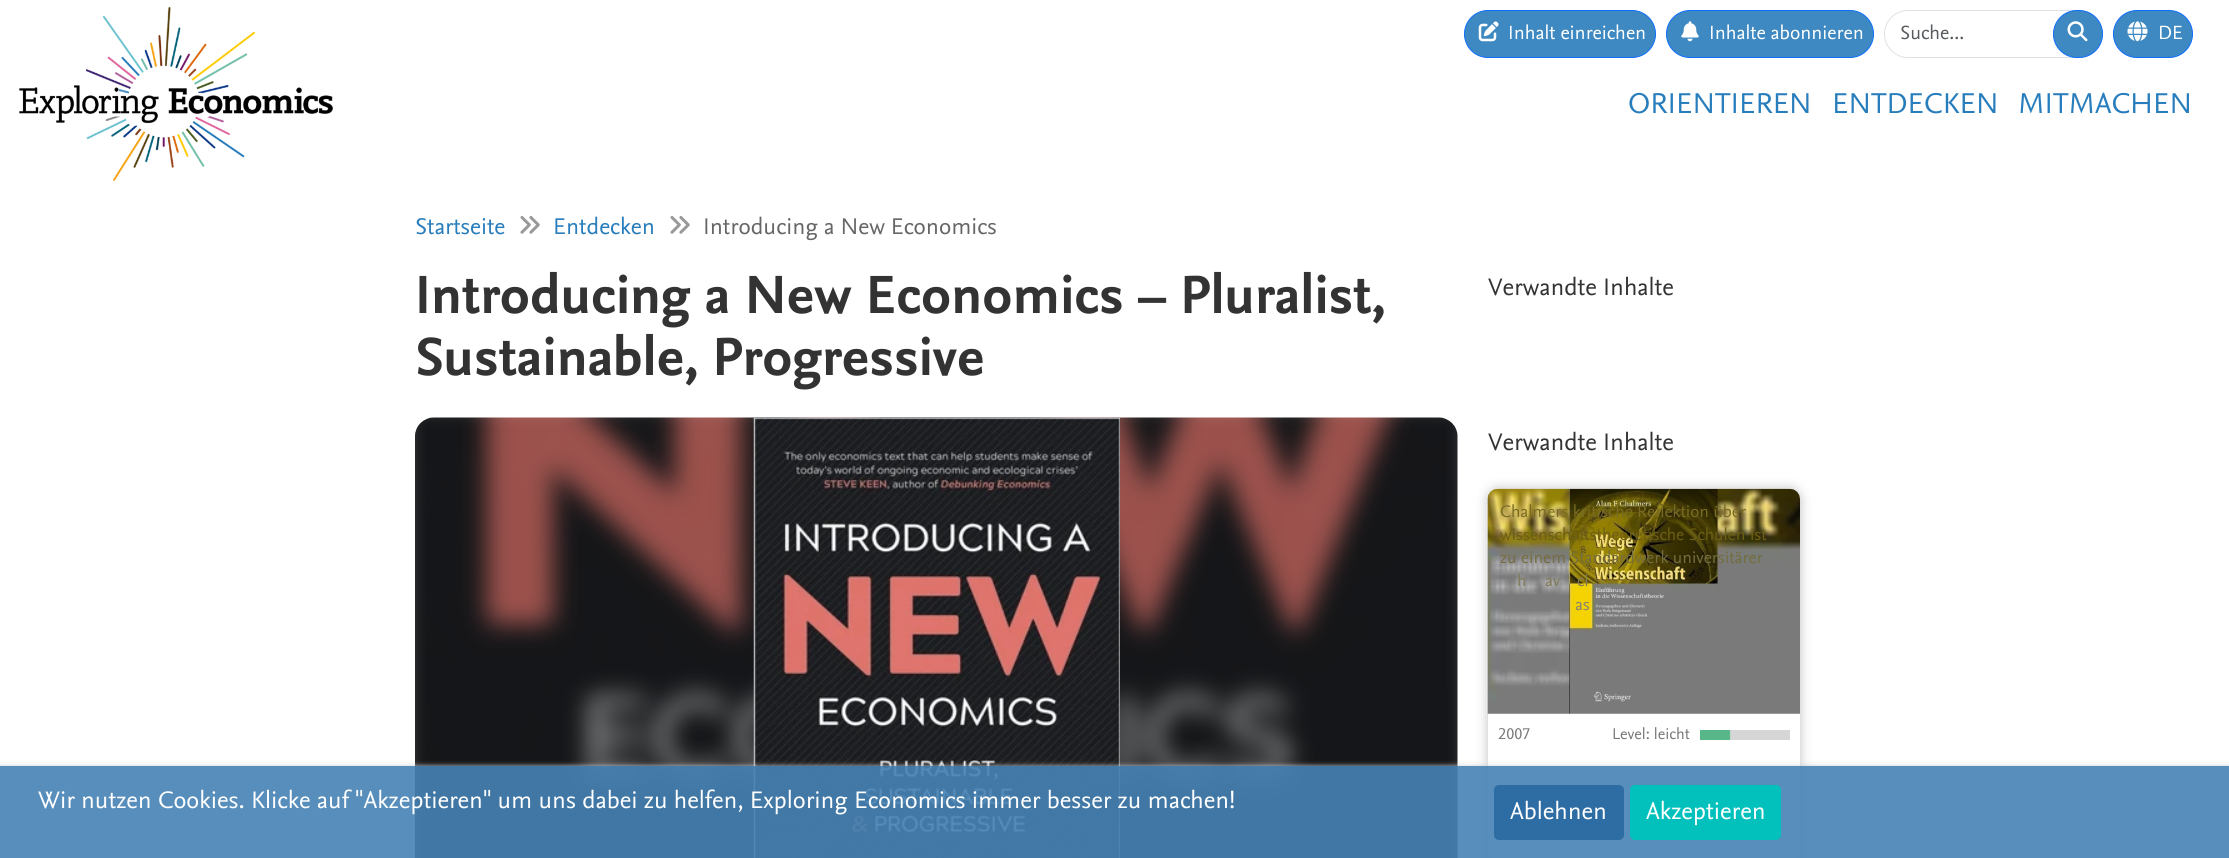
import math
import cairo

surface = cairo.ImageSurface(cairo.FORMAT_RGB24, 2229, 858)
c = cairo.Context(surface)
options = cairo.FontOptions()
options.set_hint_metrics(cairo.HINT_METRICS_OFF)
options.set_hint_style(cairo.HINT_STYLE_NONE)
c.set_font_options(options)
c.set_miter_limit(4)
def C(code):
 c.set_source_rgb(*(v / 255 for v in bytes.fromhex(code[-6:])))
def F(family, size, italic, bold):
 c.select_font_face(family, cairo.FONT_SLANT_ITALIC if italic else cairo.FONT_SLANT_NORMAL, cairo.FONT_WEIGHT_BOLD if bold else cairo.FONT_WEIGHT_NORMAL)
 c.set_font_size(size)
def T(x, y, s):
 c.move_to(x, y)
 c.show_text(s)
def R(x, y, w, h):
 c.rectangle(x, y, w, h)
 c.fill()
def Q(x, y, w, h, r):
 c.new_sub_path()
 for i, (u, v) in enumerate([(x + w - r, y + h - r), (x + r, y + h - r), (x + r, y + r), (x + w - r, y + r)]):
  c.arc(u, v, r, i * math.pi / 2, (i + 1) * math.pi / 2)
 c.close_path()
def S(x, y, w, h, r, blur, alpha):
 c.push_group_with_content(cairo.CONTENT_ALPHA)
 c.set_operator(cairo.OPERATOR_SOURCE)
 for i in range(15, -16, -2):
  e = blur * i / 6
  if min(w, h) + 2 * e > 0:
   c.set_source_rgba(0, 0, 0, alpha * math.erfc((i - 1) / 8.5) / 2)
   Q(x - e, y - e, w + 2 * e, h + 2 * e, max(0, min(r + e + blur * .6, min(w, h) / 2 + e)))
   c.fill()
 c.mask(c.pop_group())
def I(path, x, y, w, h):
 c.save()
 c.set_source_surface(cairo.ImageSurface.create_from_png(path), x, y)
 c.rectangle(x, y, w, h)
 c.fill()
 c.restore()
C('ffffff')
c.paint()
I('1.png',85,7,171,175)
I('2.png',19,85,314,39)
C('3e89c1')
Q(1464.5,10.5,191,47,23.5)
c.fill_preserve()
C('0d6efd')
c.set_line_width(1)
c.stroke()
I('3.png',1478,21,21,21)
F('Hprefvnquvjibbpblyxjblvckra',20,0,0)
C('ffffff')
T(1508,39,'Inhalt einreichen')
C('3e89c1')
Q(1666.5,10.5,207,47,23.5)
c.fill_preserve()
C('0d6efd')
c.stroke()
I('4.png',1681,21,18,21)
C('ffffff')
T(1709,39,'Inhalte abonnieren')
Q(1884.5,10.5,218,47,23.5)
C('dee2e6')
c.stroke()
C('595c5f')
T(1900,39,'Suche...')
C('3e89c1')
Q(2053.5,10.5,49,47,23.5)
c.fill_preserve()
C('0d6efd')
c.stroke()
I('5.png',2067,21,21,21)
C('3e89c1')
Q(2113.5,10.5,79,47,23.5)
c.fill_preserve()
C('0d6efd')
c.stroke()
I('6.png',2127,21,21,21)
C('ffffff')
T(2158,39,'DE')
F('Hprefvnquvjibbpblyxjblvckra',30,0,0)
C('287dbc')
T(1628,113,'ORIENTIEREN')
T(1832,113,'ENTDECKEN')
T(2018,113,'MITMACHEN')
F('Hprefvnquvjibbpblyxjblvckra',23.75,0,0)
T(415,234,'Startseite')
I('7.png',520,216,20,18)
T(553,234,'Entdecken')
I('7.png',670,216,20,18)
C('666666')
T(703,234,'Introducing a New Economics')
F('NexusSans',56.25,0,0)
C('333333')
T(415,313,'Introducing a New Economics – Pluralist,')
T(415,375,'Sustainable, Progressive')
F('Hprefvnquvjibbpblyxjblvckra',25,0,0)
T(1488,295,'Verwandte Inhalte')
I('8.png',415,417,1043,441)
I('9.png',753,417,367,441)
T(1488,450,'Verwandte Inhalte')
C('000000')
S(1488,489,312,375,10,6,.25)
C('ffffff')
Q(1488,489,312,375,10)
c.fill()
I('10.png',1487,488,313,226)
F('Hprefvnquvjibbpblyxjblvckra',17.5,0,0)
C('796b23')
T(1500,517,'Chalmers kritische Reflektion über')
C('6c5e14')
T(1500,540,'wissenschaftstheoretische Schulen ist')
C('746d3f')
T(1500,563,'zu einem Standardwerk universitärer')
C('807a59')
T(1517,586,'h')
T(1545,586,'av')
T(1577,586,'ci')
C('868372')
T(1575,610,'as')
F('Hprefvnquvjibbpblyxjblvckra',16.25,0,0)
C('777777')
T(1498,739,'2007')
I('11.png',1700,730,90,10)
T(1612,739,'Level: leicht')
c.save()
c.set_fill_rule(cairo.FILL_RULE_EVEN_ODD)
c.new_path()
c.move_to(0,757)
c.line_to(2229,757)
c.line_to(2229,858)
c.line_to(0,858)
c.close_path()
c.move_to(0,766)
c.line_to(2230,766)
c.line_to(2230,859)
c.line_to(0,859)
c.close_path()
c.clip()
C('cccccc')
S(0,766,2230,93,0,2.5,1)
c.restore()
c.set_source_rgba(0.275,0.51,0.706,0.9)
R(0,766,2229,92)
F('Hprefvnquvjibbpblyxjblvckra',25,0,0)
C('ffffff')
T(38,808,'Wir nutzen Cookies. Klicke auf "Akzeptieren" um uns dabei zu helfen, Exploring Economics immer besser zu machen!')
C('2e6da4')
Q(1494,785,130,55,5)
c.fill()
C('ffffff')
T(1510,819,'Ablehnen')
C('02c1bc')
Q(1630,785,151,55,5)
c.fill()
C('ffffff')
T(1646,819,'Akzeptieren')
surface.write_to_png('o.png')
